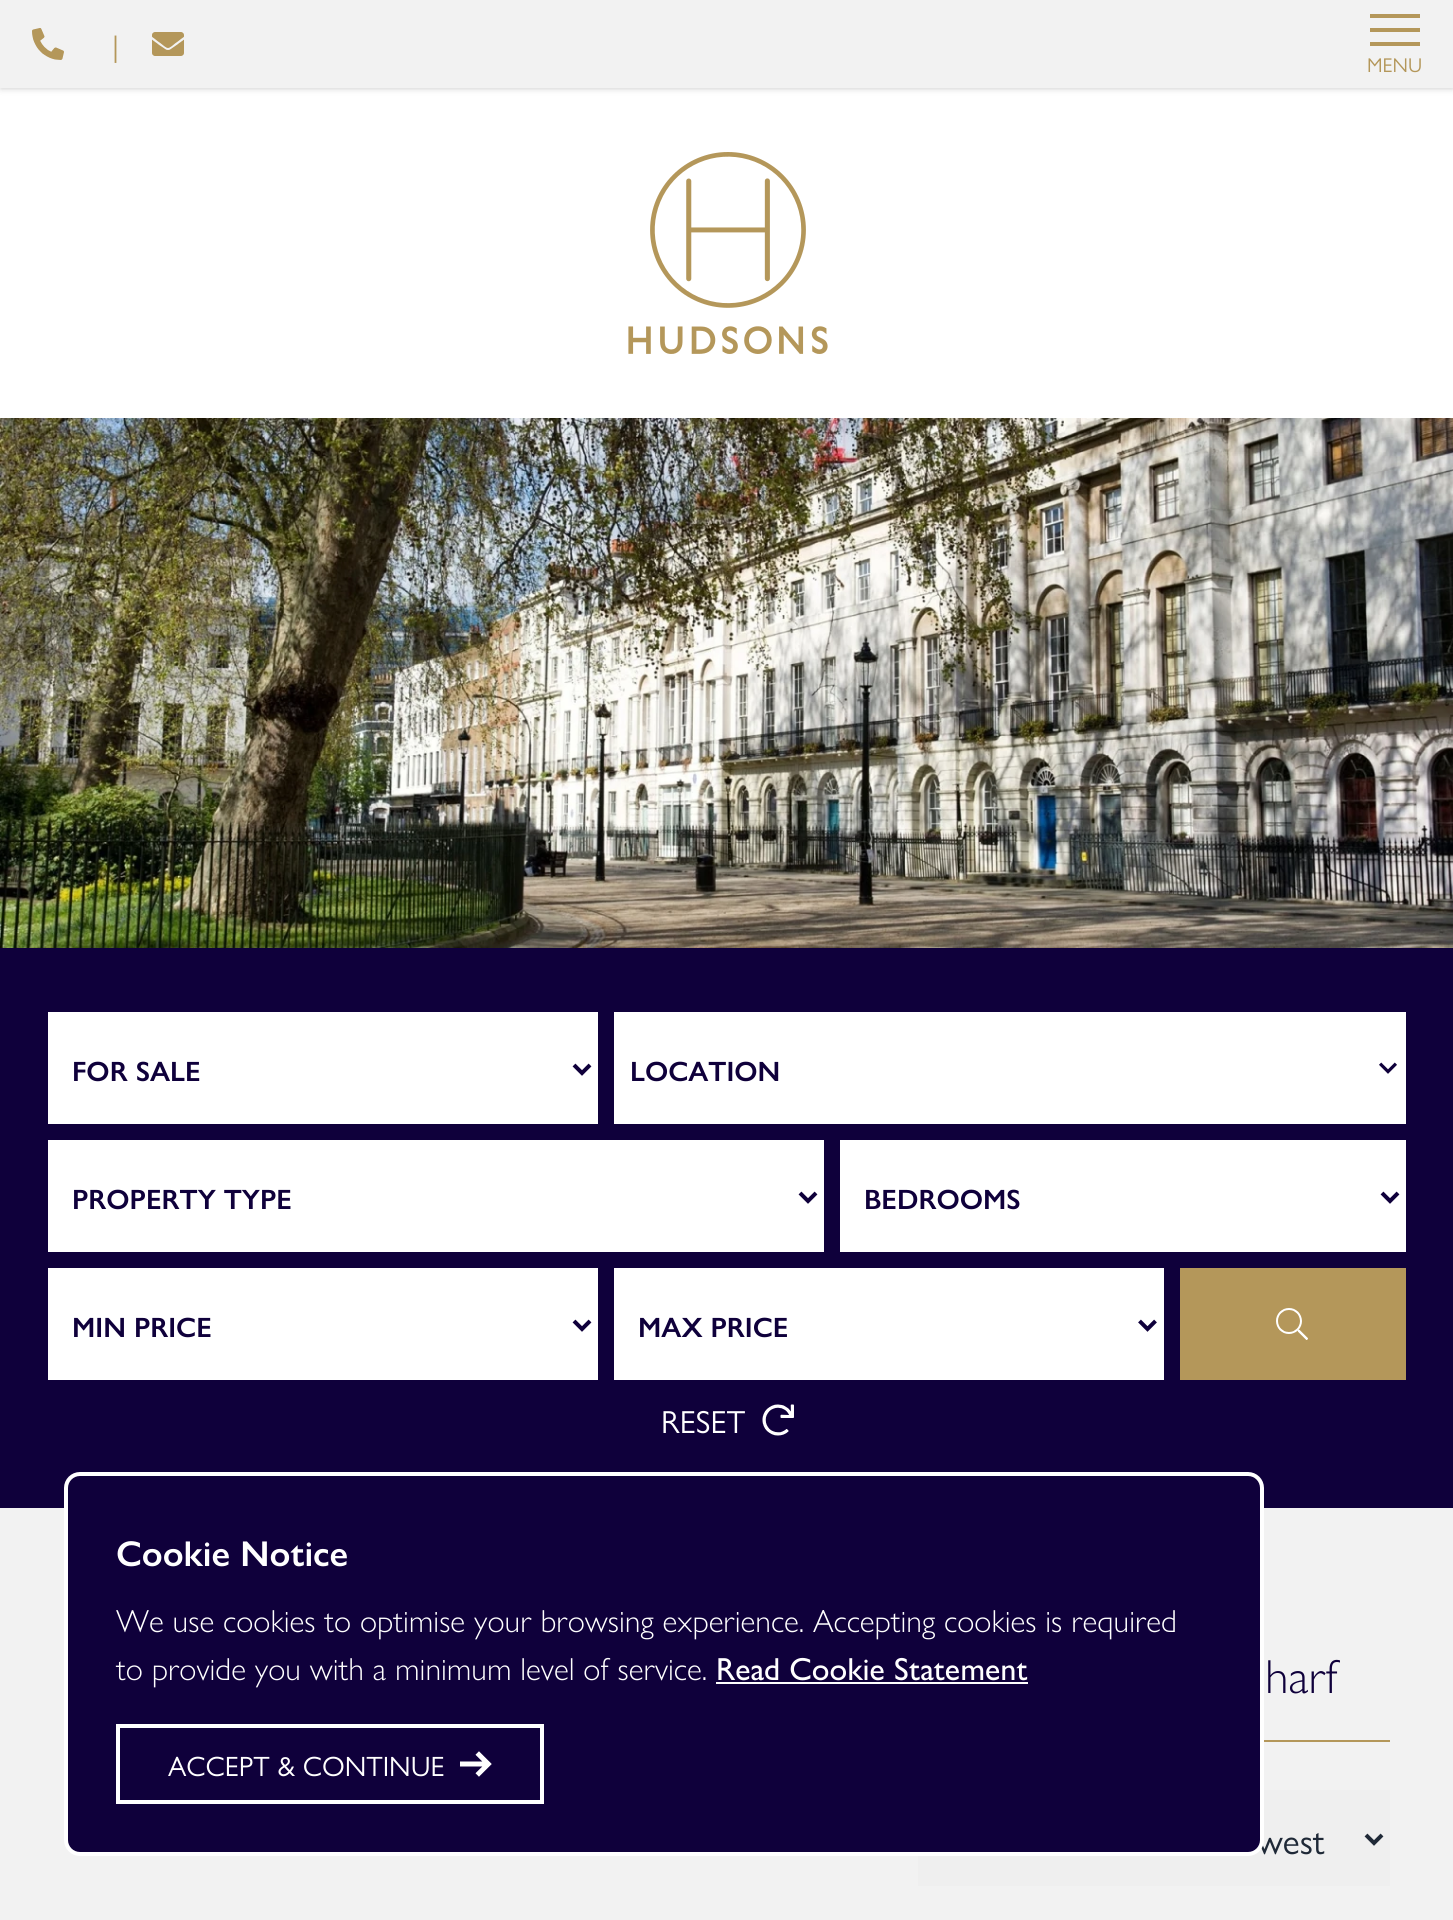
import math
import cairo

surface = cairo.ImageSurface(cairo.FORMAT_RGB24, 1453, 1920)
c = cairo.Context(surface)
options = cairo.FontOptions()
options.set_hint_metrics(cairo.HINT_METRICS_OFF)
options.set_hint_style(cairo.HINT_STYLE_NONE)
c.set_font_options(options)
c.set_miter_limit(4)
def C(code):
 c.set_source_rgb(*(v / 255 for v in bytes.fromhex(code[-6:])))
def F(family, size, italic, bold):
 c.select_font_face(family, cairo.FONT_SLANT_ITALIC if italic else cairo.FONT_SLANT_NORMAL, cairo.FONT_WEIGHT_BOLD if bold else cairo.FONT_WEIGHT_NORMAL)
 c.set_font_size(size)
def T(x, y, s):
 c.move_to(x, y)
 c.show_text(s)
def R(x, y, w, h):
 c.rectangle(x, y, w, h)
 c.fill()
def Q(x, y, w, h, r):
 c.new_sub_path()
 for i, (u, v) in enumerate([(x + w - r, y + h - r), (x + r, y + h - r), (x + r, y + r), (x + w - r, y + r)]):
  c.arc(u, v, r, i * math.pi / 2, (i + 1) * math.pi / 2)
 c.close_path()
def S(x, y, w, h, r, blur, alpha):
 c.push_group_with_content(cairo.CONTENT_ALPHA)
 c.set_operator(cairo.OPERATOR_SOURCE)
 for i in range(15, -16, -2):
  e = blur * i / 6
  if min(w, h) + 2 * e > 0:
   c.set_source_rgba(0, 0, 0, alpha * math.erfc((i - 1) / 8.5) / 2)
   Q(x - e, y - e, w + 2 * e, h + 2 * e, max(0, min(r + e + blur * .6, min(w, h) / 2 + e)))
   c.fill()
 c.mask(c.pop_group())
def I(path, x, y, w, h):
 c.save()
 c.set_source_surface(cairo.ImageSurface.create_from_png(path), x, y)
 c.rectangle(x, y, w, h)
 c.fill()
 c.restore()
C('ffffff')
c.paint()
C('000000')
S(2,4,1450,84,0,2,.1)
S(0,2,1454,88,0,3,.1)
C('f2f2f2')
R(0,0,1453,88)
I('1.png',32,28,32,32)
F('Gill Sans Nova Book',30,0,0)
C('b4975a')
T(112,56,'|')
I('2.png',152,32,32,24)
R(1370,14,50,4)
R(1370,28,50,4)
R(1370,42,50,4)
F('Gill Sans Nova Book',20,0,0)
T(1367,72,'MENU')
I('3.png',628,152,200,202)
C('f2f2f2')
R(0,1508,1453,412)
I('4.png',0,418,1453,530)
C('0f003b')
R(0,948,1453,560)
C('ffffff')
R(48,1012,550,112)
c.new_path()
c.move_to(574,1065)
c.line_to(582,1073)
c.line_to(590,1065)
C('0f003b')
c.set_line_width(4)
c.stroke()
F('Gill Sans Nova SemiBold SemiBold',28,0,0)
T(72,1081,'FOR SALE')
C('ffffff')
R(614,1012,792,112)
C('0f003b')
T(630,1081,'LOCATION')
I('5.png',1379,1062,18,12)
C('ffffff')
R(48,1140,776,112)
c.new_path()
c.move_to(800,1193)
c.line_to(808,1201)
c.line_to(816,1193)
C('0f003b')
c.stroke()
T(72,1209,'PROPERTY TYPE')
C('ffffff')
R(840,1140,566,112)
c.new_path()
c.move_to(1382,1193)
c.line_to(1390,1201)
c.line_to(1398,1193)
C('0f003b')
c.stroke()
T(864,1209,'BEDROOMS')
C('ffffff')
R(48,1268,550,112)
c.new_path()
c.move_to(574,1321)
c.line_to(582,1329)
c.line_to(590,1321)
C('0f003b')
c.stroke()
T(72,1337,'MIN PRICE')
C('ffffff')
R(614,1268,550,112)
c.new_path()
c.move_to(1139.5,1321)
c.line_to(1147.5,1329)
c.line_to(1155.5,1321)
C('0f003b')
c.stroke()
T(638,1337,'MAX PRICE')
C('b4975a')
R(1180,1268,226,112)
I('6.png',1276,1308,32,32)
F('Gill Sans Nova Book',32,0,0)
C('ffffff')
T(661,1433,'RESET')
I('7.png',762,1404,32,32)
C('b4975a')
R(1264,1740,126,2)
F('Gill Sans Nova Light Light',48,0,0)
C('0f003b')
T(1265,1693,'harf')
C('efefef')
R(918,1790,472,96)
c.new_path()
c.move_to(1366,1835)
c.line_to(1374,1843)
c.line_to(1382,1835)
C('1f2937')
c.stroke()
F('Gill Sans Nova Book',36,0,0)
T(1257,1854,'west')
C('0f003b')
Q(66,1474,1196,380,14)
c.fill_preserve()
C('ffffff')
c.stroke()
F('Gill Sans Nova SemiBold SemiBold',36,0,0)
T(116,1566,'Cookie Notice')
F('Gill Sans Nova Light Light',32,0,0)
T(116,1632,'We use cookies to optimise your browsing experience. Accepting cookies is required')
T(116,1680,'to provide you with a minimum level of service.')
F('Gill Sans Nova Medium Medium',32,0,0)
T(716,1680,'Read Cookie Statement')
R(716,1682,312,2)
c.rectangle(118,1726,424,76)
c.stroke()
F('Gill Sans Nova Book',28,0,0)
T(168,1776,'ACCEPT & CONTINUE')
I('8.png',460,1751,32,26)
surface.write_to_png('o.png')
